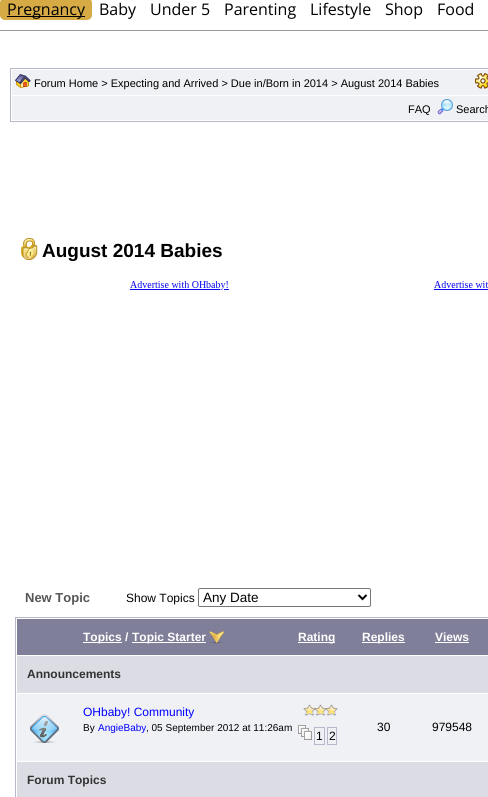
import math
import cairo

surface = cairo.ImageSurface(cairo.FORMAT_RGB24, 488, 797)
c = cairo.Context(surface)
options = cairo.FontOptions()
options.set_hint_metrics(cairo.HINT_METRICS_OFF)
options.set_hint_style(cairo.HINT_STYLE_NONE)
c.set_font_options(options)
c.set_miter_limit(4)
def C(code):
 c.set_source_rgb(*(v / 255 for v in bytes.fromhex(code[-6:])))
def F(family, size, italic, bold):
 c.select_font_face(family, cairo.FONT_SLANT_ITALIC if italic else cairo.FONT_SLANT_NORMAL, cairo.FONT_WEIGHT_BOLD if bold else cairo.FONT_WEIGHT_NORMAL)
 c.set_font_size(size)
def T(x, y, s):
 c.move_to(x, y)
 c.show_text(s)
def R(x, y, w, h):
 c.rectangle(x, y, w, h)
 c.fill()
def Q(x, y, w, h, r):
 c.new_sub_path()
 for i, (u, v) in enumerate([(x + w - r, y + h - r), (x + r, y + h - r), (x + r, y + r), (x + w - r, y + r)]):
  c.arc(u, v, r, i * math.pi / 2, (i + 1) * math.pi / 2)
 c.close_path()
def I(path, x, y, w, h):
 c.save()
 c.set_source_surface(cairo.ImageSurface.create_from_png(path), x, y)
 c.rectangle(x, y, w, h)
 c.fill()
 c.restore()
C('ffffff')
c.paint()
C('999999')
R(0,30,488,1)
C('d6ab45')
Q(0,-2,92,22,5)
c.fill()
C('000000')
R(7,16,78,1)
F('Open Sans',16,0,0)
T(7,15,'Pregnancy')
T(99,15,'Baby')
T(150,15,'Under 5')
T(224,15,'Parenting')
T(310,15,'Lifestyle')
T(385,15,'Shop')
T(437,15,'Food')
c.rectangle(10.5,68.5,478,53)
C('b6b9cb')
c.set_line_width(1)
c.stroke()
C('f0f1f5')
R(12,70,476,25)
I('1.png',15,74,16,14)
F('Liberation Sans',11,0,0)
C('000000')
T(34,87,'Forum Home > Expecting and Arrived > Due in/Born in 2014 > August 2014 Babies')
I('2.png',475,73,13,16)
C('f0f1f5')
R(12,96,476,24)
C('000000')
T(408,113,'FAQ')
I('3.png',437,99,16,16)
T(456,113,'Search')
I('4.png',21,238,17,22)
F('Liberation Sans',19,0,1)
T(42,257,'August 2014 Babies')
I('5.png',130,281,358,9)
F('Liberation Sans',13,0,1)
C('555555')
T(25,602,'New Topic')
F('Liberation Sans',12,0,0)
C('000000')
T(126,602,'Show Topics')
Q(198.5,588.5,172,18,1.5)
C('767676')
c.stroke()
c.new_path()
c.move_to(358.5,595)
c.line_to(362.5,599)
c.line_to(366.5,595)
C('000000')
c.set_line_width(2)
c.stroke()
F('Liberation Sans',13.5,0,0)
T(203,602,'Any Date')
c.rectangle(15.5,617.5,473,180)
C('b6b9cb')
c.set_line_width(1)
c.stroke()
C('7f7f99')
R(17,619,471,36)
C('ffffff')
R(83,642,39,1)
F('Liberation Sans',12,0,1)
T(83,641,'Topics /')
R(132,642,74,1)
T(132,641,'Topic Starter')
I('6.png',209,631,15,13)
R(298,642,37,1)
T(298,641,'Rating')
R(362,642,43,1)
T(362,641,'Replies')
T(435,641,'Views')
R(435,642,34,1)
C('dcdde4')
R(17,656,471,37)
C('333333')
T(27,678,'Announcements')
C('f0f1f5')
R(17,694,471,67)
I('7.png',30,714,29,29)
F('Liberation Sans',12,0,0)
C('0000ff')
T(83,716,'OHbaby! Community')
F('Liberation Sans',10,0,0)
C('000000')
T(83,731,'By')
C('0000ff')
T(98,731,'AngieBaby')
C('000000')
T(146,731,', 05 September 2012 at 11:26am')
I('8.png',303,704,35,12)
I('9.png',298,725,14,15)
c.rectangle(314.5,727.5,10,17)
C('b6b9cb')
c.stroke()
F('Liberation Sans',12,0,0)
C('000000')
T(316,740,'1')
c.rectangle(327.5,727.5,9,17)
C('b6b9cb')
c.stroke()
C('000000')
T(329,740,'2')
T(377,731,'30')
T(432,731,'979548')
C('dcdde4')
R(17,762,471,35)
F('Liberation Sans',12,0,1)
C('333333')
T(27,784,'Forum Topics')
surface.write_to_png('o.png')
